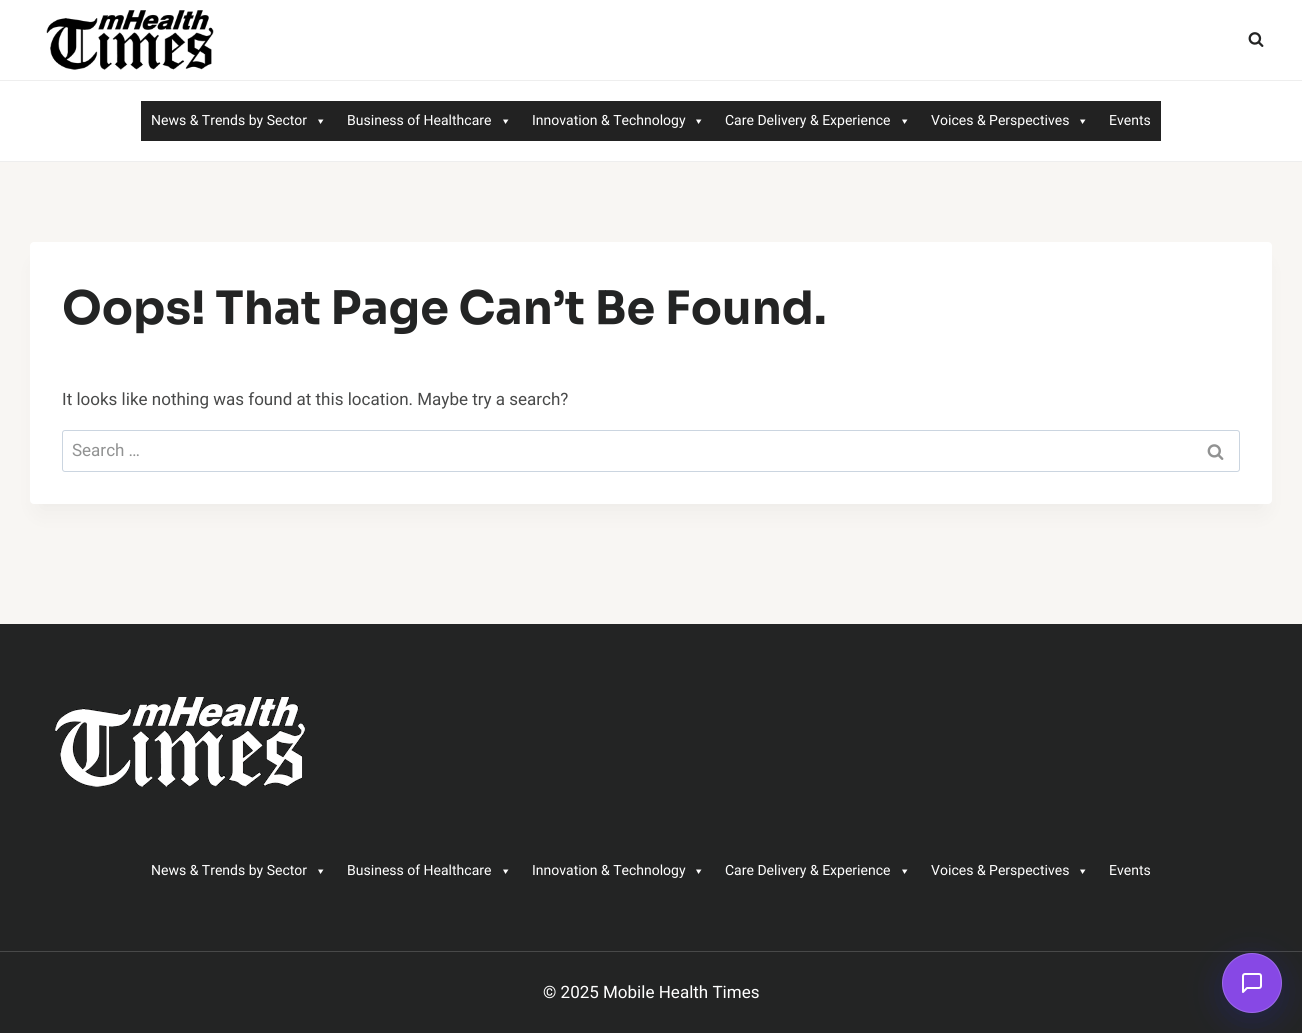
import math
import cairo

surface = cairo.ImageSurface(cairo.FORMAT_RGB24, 1302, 1033)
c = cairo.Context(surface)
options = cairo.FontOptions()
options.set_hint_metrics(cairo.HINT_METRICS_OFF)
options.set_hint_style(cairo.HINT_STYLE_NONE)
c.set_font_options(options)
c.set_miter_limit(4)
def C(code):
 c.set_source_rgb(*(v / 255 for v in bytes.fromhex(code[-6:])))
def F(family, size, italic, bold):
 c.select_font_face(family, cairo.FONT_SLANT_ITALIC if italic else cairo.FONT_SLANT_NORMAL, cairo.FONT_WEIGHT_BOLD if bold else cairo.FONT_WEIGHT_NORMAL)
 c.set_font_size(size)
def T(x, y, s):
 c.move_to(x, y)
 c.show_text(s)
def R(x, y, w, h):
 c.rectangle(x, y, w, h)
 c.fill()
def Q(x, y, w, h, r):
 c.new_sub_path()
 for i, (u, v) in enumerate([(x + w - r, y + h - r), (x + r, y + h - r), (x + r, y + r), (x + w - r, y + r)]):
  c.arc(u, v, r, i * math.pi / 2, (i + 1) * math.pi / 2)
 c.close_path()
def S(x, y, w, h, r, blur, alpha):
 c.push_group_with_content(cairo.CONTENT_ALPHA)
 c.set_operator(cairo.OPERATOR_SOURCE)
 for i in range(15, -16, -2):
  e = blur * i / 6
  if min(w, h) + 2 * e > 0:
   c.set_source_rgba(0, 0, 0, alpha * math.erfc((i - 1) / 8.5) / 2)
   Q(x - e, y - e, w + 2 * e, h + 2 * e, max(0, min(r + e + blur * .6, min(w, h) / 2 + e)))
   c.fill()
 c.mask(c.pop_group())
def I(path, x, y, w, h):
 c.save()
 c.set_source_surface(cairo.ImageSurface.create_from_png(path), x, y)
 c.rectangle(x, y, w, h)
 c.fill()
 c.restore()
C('f8f6f3')
c.paint()
C('ffffff')
R(0,0,1302,161)
I('1.png',46,10,168,60)
I('2.png',1248,32,16,15)
C('eeeeee')
R(0,80,1302,1)
R(0,161,1302,1)
C('222222')
R(141,101,1020,40)
F('Heebo',14,0,0)
C('ffffff')
T(151,125,'News & Trends by Sector')
c.new_path()
c.move_to(323.5,119.5)
c.line_to(320.5,124)
c.line_to(318,119.5)
c.close_path()
c.fill()
T(347,125,'Business of Healthcare')
c.new_path()
c.move_to(508.5,119.5)
c.line_to(505.5,124)
c.line_to(503,119.5)
c.close_path()
c.fill()
T(532,125,'Innovation & Technology')
c.new_path()
c.move_to(701.5,119.5)
c.line_to(698.5,124)
c.line_to(696,119.5)
c.close_path()
c.fill()
T(725,125,'Care Delivery & Experience')
c.new_path()
c.move_to(907.5,119.5)
c.line_to(904.5,124)
c.line_to(902,119.5)
c.close_path()
c.fill()
T(931,125,'Voices & Perspectives')
c.new_path()
c.move_to(1085.5,119.5)
c.line_to(1082.5,124)
c.line_to(1080,119.5)
c.close_path()
c.fill()
T(1109,125,'Events')
C('000000')
S(40,267,1222,242,0,12.5,.05)
C('ffffff')
Q(30,242,1242,262,4)
c.fill()
F('Sora',46,0,1)
C('232424')
T(62,324,'Oops! That Page Can’t Be Found.')
F('Heebo',17,0,0)
C('484949')
T(62,405,'It looks like nothing was found at this location. Maybe try a search?')
Q(62.5,430.5,1177,41,2.5)
C('cbd5e0')
c.set_line_width(1)
c.stroke()
C('919292')
T(72,456,'Search …')
I('3.png',1207,444,17,16)
C('232424')
R(0,624,1302,409)
I('4.png',55,697,250,90)
C('484949')
R(0,951,1302,1)
F('Heebo',14,0,0)
C('ffffff')
T(151,875,'News & Trends by Sector')
c.new_path()
c.move_to(323.5,869.5)
c.line_to(320.5,874)
c.line_to(318,869.5)
c.close_path()
c.fill()
T(347,875,'Business of Healthcare')
c.new_path()
c.move_to(508.5,869.5)
c.line_to(505.5,874)
c.line_to(503,869.5)
c.close_path()
c.fill()
T(532,875,'Innovation & Technology')
c.new_path()
c.move_to(701.5,869.5)
c.line_to(698.5,874)
c.line_to(696,869.5)
c.close_path()
c.fill()
T(725,875,'Care Delivery & Experience')
c.new_path()
c.move_to(907.5,869.5)
c.line_to(904.5,874)
c.line_to(902,869.5)
c.close_path()
c.fill()
T(931,875,'Voices & Perspectives')
c.new_path()
c.move_to(1085.5,869.5)
c.line_to(1082.5,874)
c.line_to(1080,869.5)
c.close_path()
c.fill()
T(1109,875,'Events')
F('Heebo',17,0,0)
T(543,998,'© 2025 Mobile Health Times')
C('1f2687')
S(1222,961,60,60,30,16,.37)
C('8748e5')
c.arc(1252,983,30,0,2 * math.pi)
c.fill()
c.arc(1252,983,29.5,0,2 * math.pi)
c.set_source_rgba(1,1,1,0.18)
c.stroke()
I('5.png',1242,973,20,20)
surface.write_to_png('o.png')
